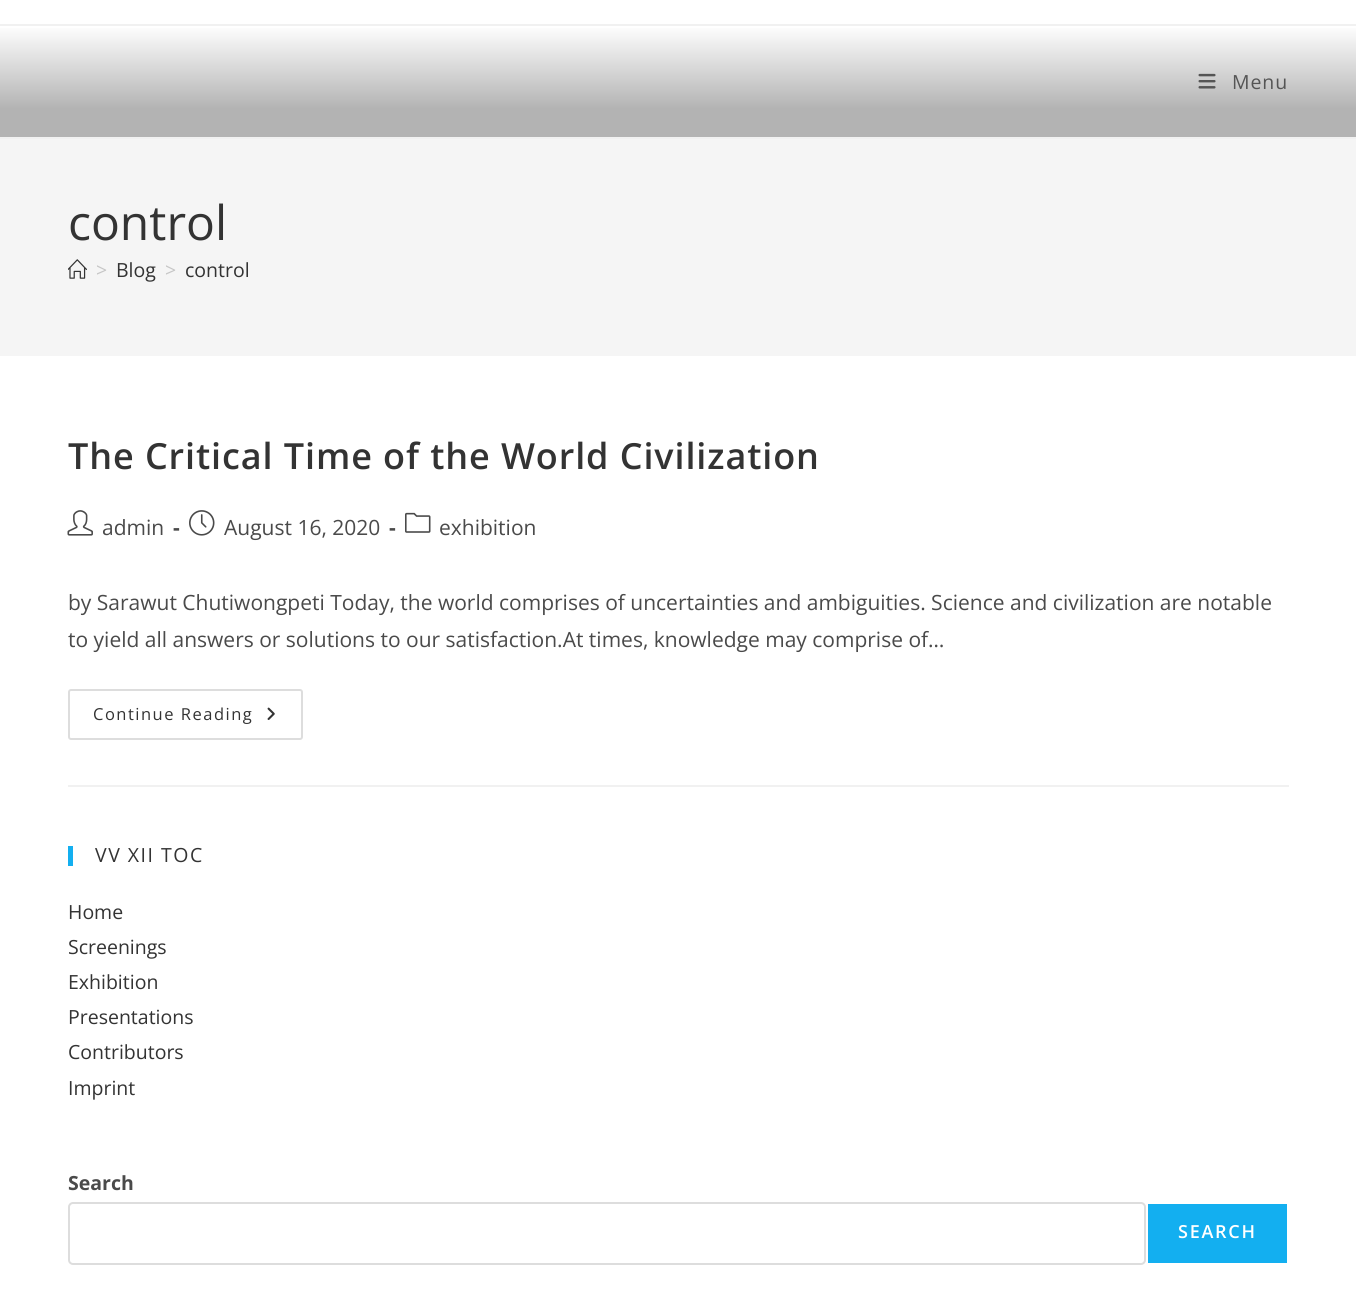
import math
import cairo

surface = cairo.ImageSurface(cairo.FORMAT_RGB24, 1356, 1303)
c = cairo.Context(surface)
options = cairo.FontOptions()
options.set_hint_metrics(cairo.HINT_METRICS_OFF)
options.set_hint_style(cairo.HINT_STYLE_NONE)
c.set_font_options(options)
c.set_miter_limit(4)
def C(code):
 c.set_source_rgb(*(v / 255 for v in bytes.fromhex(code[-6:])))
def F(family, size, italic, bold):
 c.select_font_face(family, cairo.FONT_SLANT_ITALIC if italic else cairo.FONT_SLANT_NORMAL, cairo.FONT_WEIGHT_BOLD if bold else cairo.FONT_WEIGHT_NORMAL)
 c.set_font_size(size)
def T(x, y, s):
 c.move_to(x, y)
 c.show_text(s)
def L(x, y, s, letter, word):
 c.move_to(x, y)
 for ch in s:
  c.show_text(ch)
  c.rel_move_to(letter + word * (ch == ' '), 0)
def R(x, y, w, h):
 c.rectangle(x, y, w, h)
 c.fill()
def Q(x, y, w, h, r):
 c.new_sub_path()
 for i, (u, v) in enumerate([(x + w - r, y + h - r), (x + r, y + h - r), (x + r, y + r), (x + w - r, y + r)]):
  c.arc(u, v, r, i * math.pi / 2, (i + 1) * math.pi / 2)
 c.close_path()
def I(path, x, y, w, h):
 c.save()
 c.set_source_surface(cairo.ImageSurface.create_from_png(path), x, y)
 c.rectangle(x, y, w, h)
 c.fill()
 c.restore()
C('ffffff')
c.paint()
C('f1f1f1')
R(0,24,1356,2)
R(0,137,1356,2)
gradient = cairo.LinearGradient(678,25,678,137)
gradient.add_color_stop_rgba(0,1,1,1,1)
gradient.add_color_stop_rgba(.75,0.702,0.702,0.702,1)
gradient.add_color_stop_rgba(1,0.702,0.702,0.702,1)
c.set_source(gradient)
R(0,28,1356,109)
I('1.png',1198,73,18,16)
F('Open Sans',19.5,0,0)
C('555555')
L(1232,89,'Menu',.9,0)
C('f5f5f5')
R(0,139,1356,217)
F('Open Sans',48,0,0)
C('333333')
T(68,240,'control')
I('2.png',68,259,19,20)
F('Open Sans',19.5,0,0)
C('c6c6c6')
T(96,277,'>')
C('333333')
T(116,277,'Blog')
C('c6c6c6')
T(165,277,'>')
C('333333')
T(185,277,'control')
C('f1f1f1')
R(68,785,1221,2)
F('Open Sans SemiBold',36,0,0)
C('333333')
L(68,469,'The Critical Time of the World Civilization',.9,0)
I('3.png',67,510,26,26)
F('Open Sans',21,0,0)
C('4a4a4a')
T(102,535,'admin')
F('Open Sans',21,0,1)
T(173,535,'-')
I('4.png',189,510,26,26)
F('Open Sans',21,0,0)
T(224,535,'August 16, 2020')
F('Open Sans',21,0,1)
T(389,535,'-')
I('5.png',405,512,26,21)
F('Open Sans',21,0,0)
T(439,535,'exhibition')
T(68,610,'by Sarawut Chutiwongpeti Today, the world comprises of uncertainties and ambiguities. Science and civilization are notable')
T(68,647,'to yield all answers or solutions to our satisfaction.At times, knowledge may comprise of…')
Q(69,690,233,49,2)
C('dddddd')
c.stroke()
F('Open Sans',16.5,0,0)
C('333333')
L(93,720,'Continue Reading',1.5,0)
I('6.png',267,707,8,13)
C('13aff0')
R(68,846,5,20)
F('Open Sans',19.5,0,0)
C('333333')
L(95,862,'VV XII TOC',1.5,0)
T(68,919,'Home')
T(68,954,'Screenings')
T(68,989,'Exhibition')
T(68,1024,'Presentations')
T(68,1059,'Contributors')
T(68,1095,'Imprint')
F('Open Sans',19.5,0,1)
C('4a4a4a')
T(68,1190,'Search')
Q(69,1203,1076,61,4)
C('dddddd')
c.stroke()
C('13aff0')
R(1148,1204,139,59)
F('Open Sans SemiBold',18,0,0)
C('ffffff')
L(1178,1238,'SEARCH',1.75,0)
surface.write_to_png('o.png')
